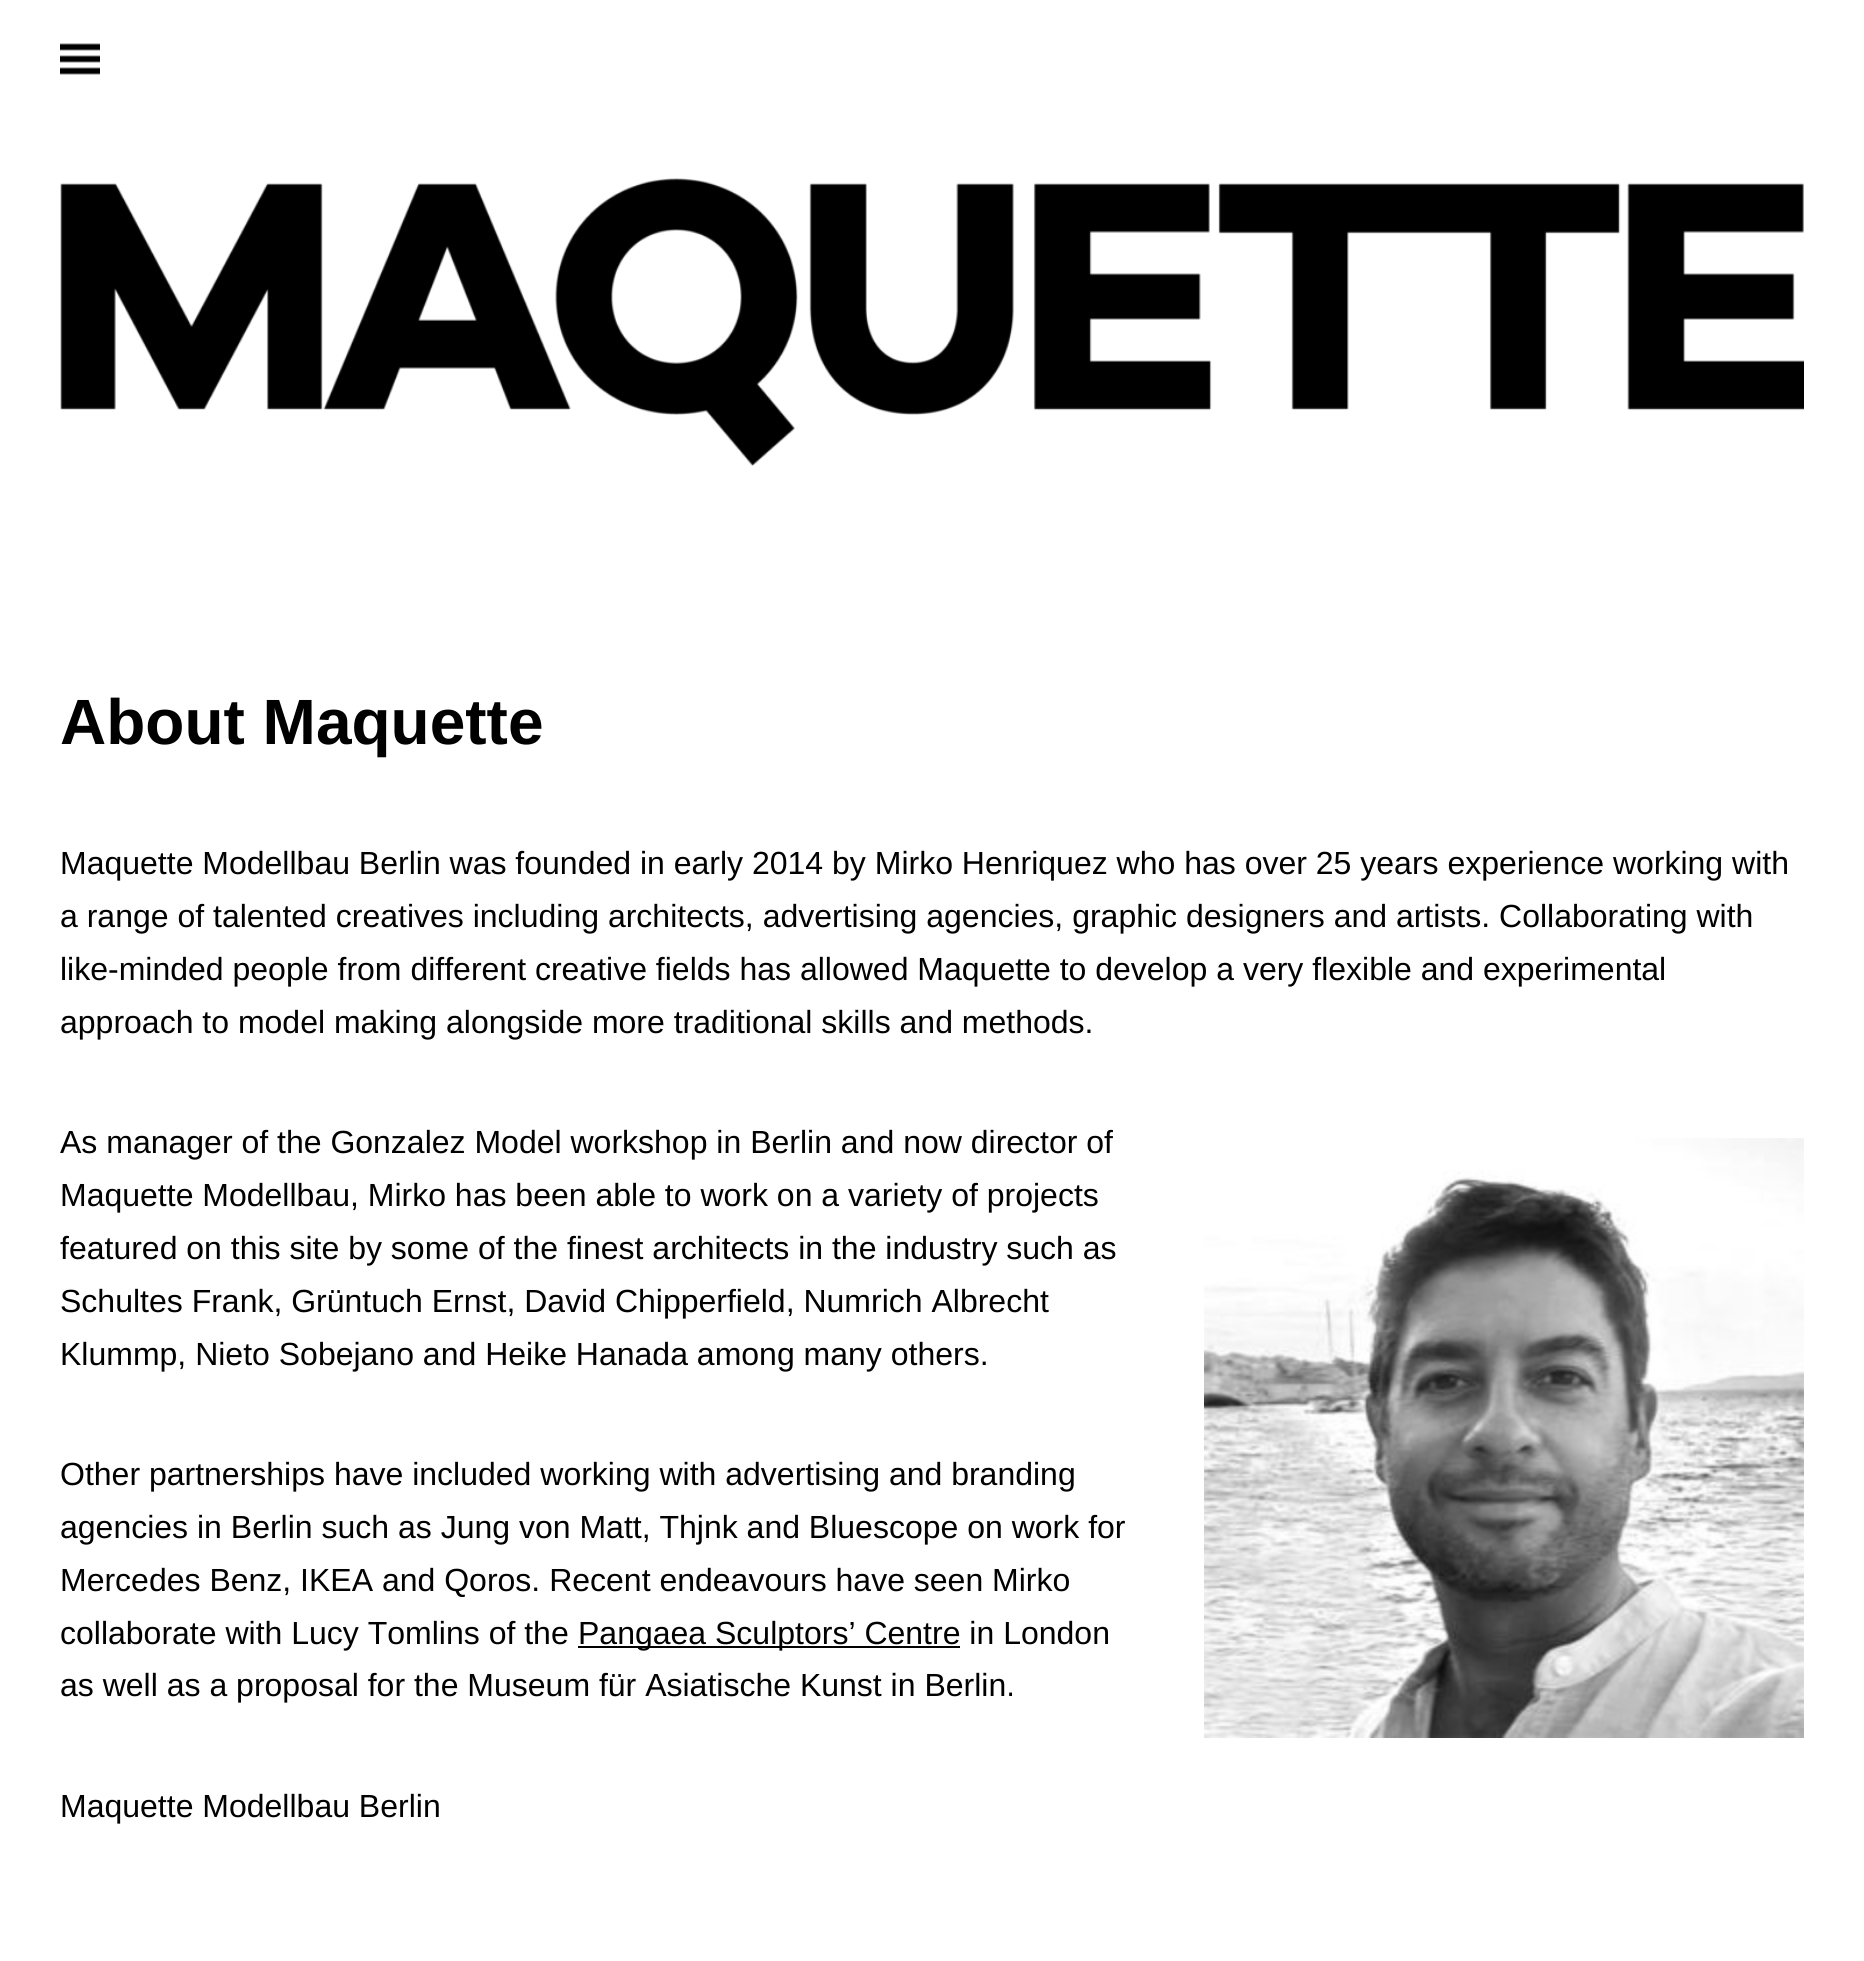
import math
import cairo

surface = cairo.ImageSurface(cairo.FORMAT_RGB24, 1864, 1961)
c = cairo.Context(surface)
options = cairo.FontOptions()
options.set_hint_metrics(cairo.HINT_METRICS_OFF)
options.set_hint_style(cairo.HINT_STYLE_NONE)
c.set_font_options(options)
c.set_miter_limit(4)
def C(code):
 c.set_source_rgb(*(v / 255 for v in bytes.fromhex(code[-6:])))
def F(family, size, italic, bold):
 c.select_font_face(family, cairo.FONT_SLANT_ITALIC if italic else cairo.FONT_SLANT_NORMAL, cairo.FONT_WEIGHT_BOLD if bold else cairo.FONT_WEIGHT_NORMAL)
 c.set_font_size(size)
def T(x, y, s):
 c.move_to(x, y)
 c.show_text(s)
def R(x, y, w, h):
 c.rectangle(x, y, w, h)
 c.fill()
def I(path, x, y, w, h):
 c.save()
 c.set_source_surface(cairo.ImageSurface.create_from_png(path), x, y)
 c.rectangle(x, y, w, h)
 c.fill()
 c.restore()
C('ffffff')
c.paint()
I('1.png',60,43,40,32)
I('2.png',60,178,1744,288)
F('Liberation Sans',64,0,1)
C('000000')
T(60,744,'About Maquette')
F('Liberation Sans',32,0,0)
T(60,874,'Maquette Modellbau Berlin was founded in early 2014 by Mirko Henriquez who has over 25 years experience working with')
T(60,927,'a range of talented creatives including architects, advertising agencies, graphic designers and artists. Collaborating with')
T(60,980,'like-minded people from different creative fields has allowed Maquette to develop a very flexible and experimental')
T(60,1033,'approach to model making alongside more traditional skills and methods.')
T(60,1153,'As manager of the Gonzalez Model workshop in Berlin and now director of')
I('3.png',1204,1138,600,600)
T(60,1206,'Maquette Modellbau, Mirko has been able to work on a variety of projects')
T(60,1259,'featured on this site by some of the finest architects in the industry such as')
T(60,1312,'Schultes Frank, Grüntuch Ernst, David Chipperfield, Numrich Albrecht')
T(60,1365,'Klummp, Nieto Sobejano and Heike Hanada among many others.')
T(60,1485,'Other partnerships have included working with advertising and branding')
T(60,1538,'agencies in Berlin such as Jung von Matt, Thjnk and Bluescope on work for')
T(60,1591,'Mercedes Benz, IKEA and Qoros. Recent endeavours have seen Mirko')
T(60,1644,'collaborate with Lucy Tomlins of the')
R(578,1646,382,2)
T(578,1644,'Pangaea Sculptors’ Centre in London')
T(60,1696,'as well as a proposal for the Museum für Asiatische Kunst in Berlin.')
T(60,1817,'Maquette Modellbau Berlin')
surface.write_to_png('o.png')
